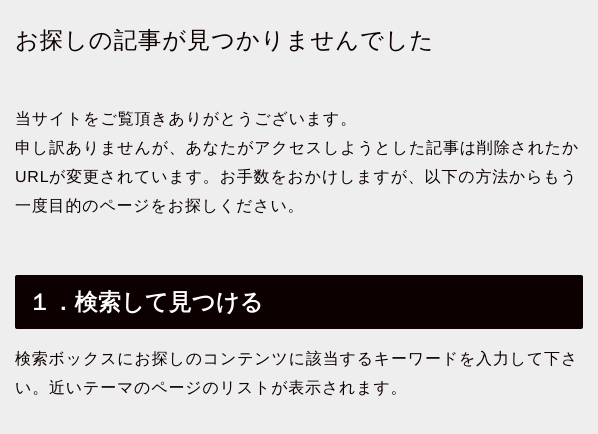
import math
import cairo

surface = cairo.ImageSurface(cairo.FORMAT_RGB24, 598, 434)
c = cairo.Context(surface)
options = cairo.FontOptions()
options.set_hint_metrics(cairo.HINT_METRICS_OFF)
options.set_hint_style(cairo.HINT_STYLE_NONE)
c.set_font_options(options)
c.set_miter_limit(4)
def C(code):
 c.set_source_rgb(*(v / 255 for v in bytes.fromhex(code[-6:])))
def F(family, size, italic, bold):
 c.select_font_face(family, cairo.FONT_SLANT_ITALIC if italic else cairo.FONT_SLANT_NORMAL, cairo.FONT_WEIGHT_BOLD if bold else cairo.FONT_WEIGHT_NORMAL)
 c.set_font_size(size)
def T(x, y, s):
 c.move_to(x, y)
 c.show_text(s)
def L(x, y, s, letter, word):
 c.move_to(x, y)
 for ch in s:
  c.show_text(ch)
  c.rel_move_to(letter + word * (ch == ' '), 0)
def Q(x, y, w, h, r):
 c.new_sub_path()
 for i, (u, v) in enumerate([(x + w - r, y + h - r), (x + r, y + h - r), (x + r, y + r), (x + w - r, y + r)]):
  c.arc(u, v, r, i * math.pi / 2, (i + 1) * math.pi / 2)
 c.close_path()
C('eeeeee')
c.paint()
F('WenQuanYi Zen Hei Medium',23.25,0,0)
C('0c0000')
L(15,48,'お探しの記事が見つかりませんでした',1,0)
F('WenQuanYi Zen Hei Medium',16,0,0)
L(15,124,'当サイトをご覧頂きありがとうございます。',.8,0)
L(15,153,'申し訳ありませんが、あなたがアクセスしようとした記事は削除されたか',.8,0)
F('Liberation Sans',16,0,0)
L(15,182,'URL',.8,0)
F('WenQuanYi Zen Hei Medium',16,0,0)
L(49,182,'が変更されています。お手数をおかけしますが、以下の方法からもう',.8,0)
L(15,211,'一度目的のページをお探しください。',.8,0)
Q(15,275,568,54,2)
c.fill()
F('WenQuanYi Zen Hei',23.25,0,1)
C('ffffff')
T(28,310,'１．検索して見つける')
F('WenQuanYi Zen Hei Medium',16,0,0)
C('0c0000')
L(15,364,'検索ボックスにお探しのコンテンツに該当するキーワードを入力して下さ',.8,0)
L(15,393,'い。近いテーマのページのリストが表示されます。',.8,0)
surface.write_to_png('o.png')
